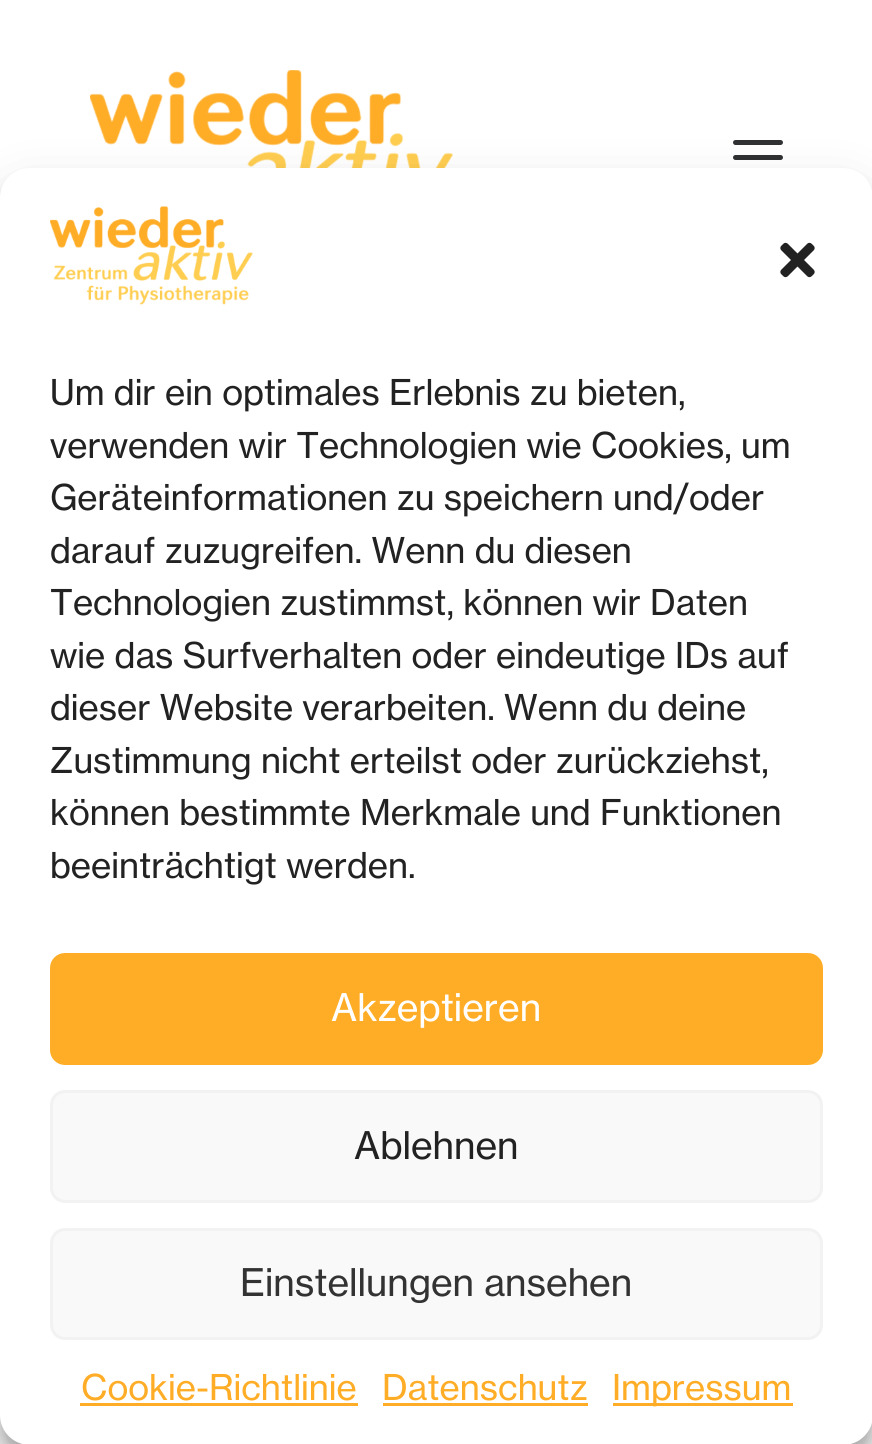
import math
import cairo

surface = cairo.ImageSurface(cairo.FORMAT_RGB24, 872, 1444)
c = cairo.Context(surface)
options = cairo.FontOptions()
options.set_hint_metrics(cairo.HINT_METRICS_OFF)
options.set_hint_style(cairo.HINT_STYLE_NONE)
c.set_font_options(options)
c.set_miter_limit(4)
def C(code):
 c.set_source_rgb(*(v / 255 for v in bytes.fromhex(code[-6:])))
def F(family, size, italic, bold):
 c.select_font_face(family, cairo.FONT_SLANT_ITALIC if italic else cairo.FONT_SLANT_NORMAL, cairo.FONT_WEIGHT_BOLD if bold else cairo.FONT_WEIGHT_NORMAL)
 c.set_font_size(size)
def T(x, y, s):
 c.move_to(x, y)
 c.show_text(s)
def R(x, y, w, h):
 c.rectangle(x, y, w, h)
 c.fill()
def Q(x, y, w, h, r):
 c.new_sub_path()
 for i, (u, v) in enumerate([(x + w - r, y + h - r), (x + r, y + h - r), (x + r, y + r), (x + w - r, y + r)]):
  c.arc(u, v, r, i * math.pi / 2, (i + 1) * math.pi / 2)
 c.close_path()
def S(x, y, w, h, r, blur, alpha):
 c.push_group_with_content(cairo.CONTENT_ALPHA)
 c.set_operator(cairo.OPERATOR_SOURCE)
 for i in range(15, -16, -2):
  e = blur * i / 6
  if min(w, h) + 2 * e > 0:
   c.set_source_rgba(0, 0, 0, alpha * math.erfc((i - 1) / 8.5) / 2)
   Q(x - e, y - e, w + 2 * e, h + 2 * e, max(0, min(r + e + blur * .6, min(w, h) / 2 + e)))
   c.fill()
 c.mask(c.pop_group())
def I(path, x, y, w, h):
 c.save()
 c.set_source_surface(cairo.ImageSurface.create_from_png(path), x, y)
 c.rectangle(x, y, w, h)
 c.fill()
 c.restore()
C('ffffff')
c.paint()
I('1.png',90,70,363,98)
C('303133')
Q(733,155,50,5,2.5)
c.fill()
Q(733,140,50,5,2.5)
c.fill()
C('000000')
S(0,183,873,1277,30,7.5,.23)
S(0,193,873,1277,30,25,.19)
C('ffffff')
Q(0,168,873,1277,30)
c.fill()
I('2.png',50,206,203,99)
I('3.png',780,242,35,36)
F('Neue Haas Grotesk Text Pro',35,0,0)
C('222222')
T(50,405,'Um dir ein optimales Erlebnis zu bieten,')
T(50,458,'verwenden wir Technologien wie Cookies, um')
T(50,510,'Geräteinformationen zu speichern und/oder')
T(50,563,'darauf zuzugreifen. Wenn du diesen')
T(50,615,'Technologien zustimmst, können wir Daten')
T(50,668,'wie das Surfverhalten oder eindeutige IDs auf')
T(50,720,'dieser Website verarbeiten. Wenn du deine')
T(50,773,'Zustimmung nicht erteilst oder zurückziehst,')
T(50,825,'können bestimmte Merkmale und Funktionen')
T(50,878,'beeinträchtigt werden.')
C('ffad27')
Q(51.5,954.5,770,109,13.5)
c.fill_preserve()
c.set_line_width(3)
c.stroke()
F('Neue Haas Grotesk Text Pro',37.5,0,0)
C('ffffff')
T(331,1021,'Akzeptieren')
C('f9f9f9')
Q(51.5,1091.5,770,110,13.5)
c.fill_preserve()
C('f2f2f2')
c.stroke()
C('222222')
T(354,1159,'Ablehnen')
C('f9f9f9')
Q(51.5,1229.5,770,109,13.5)
c.fill_preserve()
C('f2f2f2')
c.stroke()
C('333333')
T(240,1296,'Einstellungen ansehen')
F('Neue Haas Grotesk Text Pro',35,0,0)
C('ffad27')
T(81,1400,'Cookie-Richtlinie')
R(80,1403,278,3)
T(382,1400,'Datenschutz')
R(383,1403,205,3)
R(613,1403,180,3)
T(612,1400,'Impressum')
surface.write_to_png('o.png')
